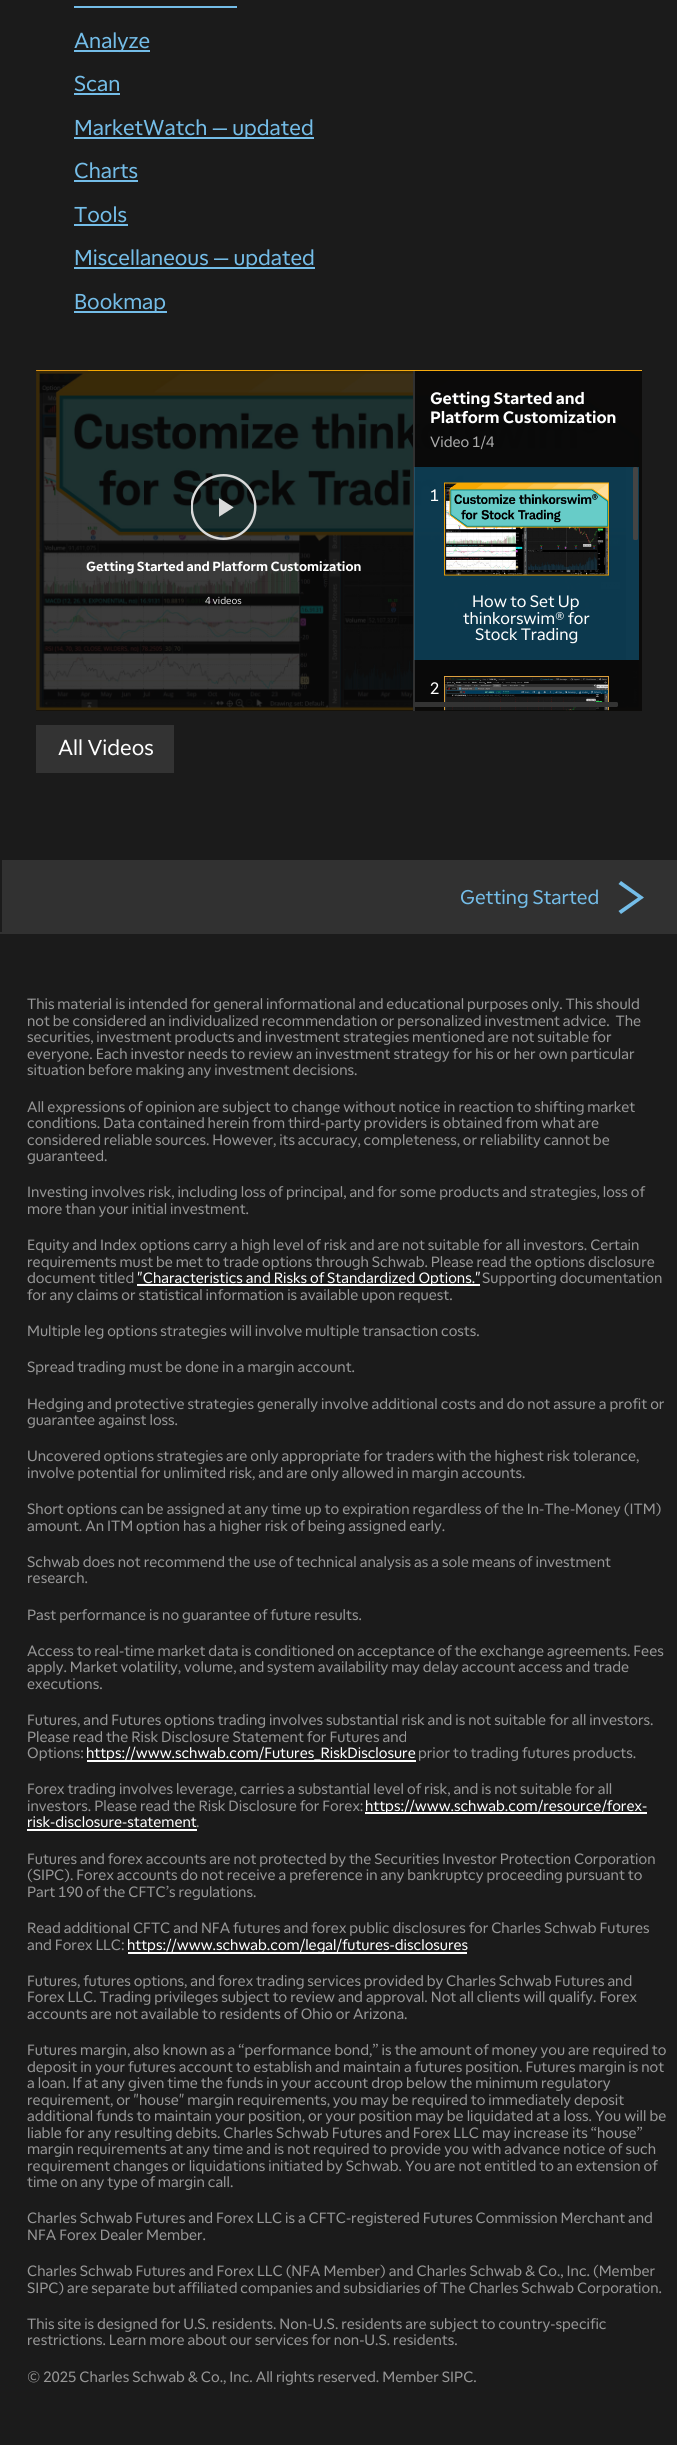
import math
import cairo

surface = cairo.ImageSurface(cairo.FORMAT_RGB24, 677, 2445)
c = cairo.Context(surface)
options = cairo.FontOptions()
options.set_hint_metrics(cairo.HINT_METRICS_OFF)
options.set_hint_style(cairo.HINT_STYLE_NONE)
c.set_font_options(options)
c.set_miter_limit(4)
def C(code):
 c.set_source_rgb(*(v / 255 for v in bytes.fromhex(code[-6:])))
def F(family, size, italic, bold):
 c.select_font_face(family, cairo.FONT_SLANT_ITALIC if italic else cairo.FONT_SLANT_NORMAL, cairo.FONT_WEIGHT_BOLD if bold else cairo.FONT_WEIGHT_NORMAL)
 c.set_font_size(size)
def T(x, y, s):
 c.move_to(x, y)
 c.show_text(s)
def L(x, y, s, letter, word):
 c.move_to(x, y)
 for ch in s:
  c.show_text(ch)
  c.rel_move_to(letter + word * (ch == ' '), 0)
def R(x, y, w, h):
 c.rectangle(x, y, w, h)
 c.fill()
def Q(x, y, w, h, r):
 c.new_sub_path()
 for i, (u, v) in enumerate([(x + w - r, y + h - r), (x + r, y + h - r), (x + r, y + r), (x + w - r, y + r)]):
  c.arc(u, v, r, i * math.pi / 2, (i + 1) * math.pi / 2)
 c.close_path()
def I(path, x, y, w, h):
 c.save()
 c.set_source_surface(cairo.ImageSurface.create_from_png(path), x, y)
 c.rectangle(x, y, w, h)
 c.fill()
 c.restore()
C('1b1b1b')
c.paint()
C('0d0d0d')
R(36,710,606,1)
C('74bde8')
R(74,6,163,2)
R(74,50,76,2)
F('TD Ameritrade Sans',21.5,0,0)
T(74,48,'Analyze')
T(74,91,'Scan')
R(74,93,46,2)
R(74,137,240,2)
T(74,135,'MarketWatch — updated')
T(74,178,'Charts')
R(74,180,64,2)
T(74,222,'Tools')
R(74,224,54,2)
R(74,267,241,2)
T(74,265,'Miscellaneous — updated')
R(74,311,93,2)
T(74,309,'Bookmap')
I('1.png',36,370,606,341)
I('2.png',191,474,66,66)
F('TD Ameritrade Sans',13.2,0,1)
C('ffffff')
T(86,571,'Getting Started and Platform Customization')
F('TD Ameritrade Sans',10,0,0)
C('dedede')
T(205,604,'4 videos')
c.set_source_rgba(0.039,0.039,0.039,0.8)
R(415,371,227,340)
C('313131')
R(413,371,2,340)
c.set_source_rgba(0.039,0.039,0.039,0.8)
R(415,371,227,339)
F('TD Ameritrade Sans',16.5,0,1)
C('ffffff')
T(430,404,'Getting Started and')
T(430,423,'Platform Customization')
F('TD Ameritrade Sans',14.85,0,0)
C('acacac')
T(430,447,'Video 1/4')
c.set_source_rgba(0.075,0.514,0.722,0.4)
R(414,467,212,193)
F('TD Ameritrade Sans',16.5,0,0)
C('ffffff')
T(430,501,'1')
I('3.png',444,482,165,94)
T(472,607,'How to Set Up')
T(463,624,'thinkorswim® for')
T(475,640,'Stock Trading')
C('0e3b50')
R(626,467,13,193)
C('ffffff')
T(430,694,'2')
I('4.png',444,676,165,35)
C('454545')
Q(633,467,5,73,1.5)
c.fill()
C('333333')
Q(414,702,204,5,1.5)
c.fill()
R(36,725,138,48)
F('TD Ameritrade Sans',21.5,0,0)
C('ffffff')
T(58,755,'All Videos')
C('313131')
R(2,860,675,72)
F('TD Ameritrade Sans',19.75,0,0)
C('74bde8')
T(460,904,'Getting Started')
c.set_fill_rule(cairo.FILL_RULE_EVEN_ODD)
c.new_path()
c.move_to(638,897.5)
c.line_to(618.5,884)
c.line_to(621,881)
c.line_to(644,897.5)
c.line_to(621,914)
c.line_to(618.5,911)
c.close_path()
c.fill()
C('313131')
R(0,932,677,2)
F('TD Ameritrade Sans',14.85,0,0)
C('979797')
L(27,1009,'This material is intended for general informational and educational purposes only. This should',0,-.1)
L(27,1026,'not be considered an individualized recommendation or personalized investment advice.  The',0,-.1)
L(27,1042,'securities, investment products and investment strategies mentioned are not suitable for',0,-.25)
T(27,1059,'everyone. Each investor needs to review an investment strategy for his or her own particular')
T(27,1075,'situation before making any investment decisions.')
T(27,1112,'All expressions of opinion are subject to change without notice in reaction to shifting market')
L(27,1128,'conditions. Data contained herein from third-party providers is obtained from what are',0,-.1)
L(27,1145,'considered reliable sources. However, its accuracy, completeness, or reliability cannot be',0,-.25)
T(27,1161,'guaranteed.')
T(27,1197,'Investing involves risk, including loss of principal, and for some products and strategies, loss of')
L(27,1214,'more than your initial investment.',0,-.1)
T(27,1250,'Equity and Index options carry a high level of risk and are not suitable for all investors. Certain')
L(27,1267,'requirements must be met to trade options through Schwab. Please read the options disclosure',0,-.1)
T(27,1283,'document titled')
C('ffffff')
R(137,1284,343,2)
T(137,1283,'"Characteristics and Risks of Standardized Options."')
C('979797')
T(482,1283,'Supporting documentation')
T(27,1300,'for any claims or statistical information is available upon request.')
L(27,1336,'Multiple leg options strategies will involve multiple transaction costs.',0,-.1)
T(27,1372,'Spread trading must be done in a margin account.')
T(27,1409,'Hedging and protective strategies generally involve additional costs and do not assure a profit or')
T(27,1425,'guarantee against loss.')
L(27,1461,'Uncovered options strategies are only appropriate for traders with the highest risk tolerance,',0,-.1)
T(27,1478,'involve potential for unlimited risk, and are only allowed in margin accounts.')
T(27,1514,'Short options can be assigned at any time up to expiration regardless of the In-The-Money (ITM)')
T(27,1531,'amount. An ITM option has a higher risk of being assigned early.')
T(27,1567,'Schwab does not recommend the use of technical analysis as a sole means of investment')
T(27,1583,'research.')
T(27,1620,'Past performance is no guarantee of future results.')
L(27,1656,'Access to real-time market data is conditioned on acceptance of the exchange agreements. Fees',0,-.1)
L(27,1672,'apply. Market volatility, volume, and system availability may delay account access and trade',0,-.1)
T(27,1689,'executions.')
T(27,1725,'Futures, and Futures options trading involves substantial risk and is not suitable for all investors.')
T(27,1742,'Please read the Risk Disclosure Statement for Futures and')
T(27,1758,'Options:')
C('ffffff')
R(87,1760,329,2)
T(86,1758,'https://www.schwab.com/Futures_RiskDisclosure')
C('979797')
T(418,1758,'prior to trading futures products.')
T(27,1794,'Forex trading involves leverage, carries a substantial level of risk, and is not suitable for all')
T(27,1811,'investors. Please read the Risk Disclosure for Forex:')
C('ffffff')
R(365,1812,282,2)
T(365,1811,'https://www.schwab.com/resource/forex-')
T(27,1827,'risk-disclosure-statement')
R(27,1829,170,2)
C('979797')
T(196,1827,'.')
L(27,1864,'Futures and forex accounts are not protected by the Securities Investor Protection Corporation',0,-.1)
T(27,1880,'(SIPC). Forex accounts do not receive a preference in any bankruptcy proceeding pursuant to')
T(27,1897,'Part 190 of the CFTC’s regulations.')
L(27,1933,'Read additional CFTC and NFA futures and forex public disclosures for Charles Schwab Futures',0,-.1)
T(27,1950,'and Forex LLC:')
C('ffffff')
R(128,1952,339,2)
T(127,1950,'https://www.schwab.com/legal/futures-disclosures')
C('979797')
L(27,1986,'Futures, futures options, and forex trading services provided by Charles Schwab Futures and',0,-.1)
T(27,2002,'Forex LLC. Trading privileges subject to review and approval. Not all clients will qualify. Forex')
T(27,2019,'accounts are not available to residents of Ohio or Arizona.')
T(27,2055,'Futures margin, also known as a “performance bond,” is the amount of money you are required to')
T(27,2072,'deposit in your futures account to establish and maintain a futures position. Futures margin is not')
T(27,2088,'a loan. If at any given time the funds in your account drop below the minimum regulatory')
L(27,2105,'requirement, or "house" margin requirements, you may be required to immediately deposit',0,-.1)
T(27,2121,'additional funds to maintain your position, or your position may be liquidated at a loss. You will be')
T(27,2138,'liable for any resulting debits. Charles Schwab Futures and Forex LLC may increase its “house”')
T(27,2154,'margin requirements at any time and is not required to provide you with advance notice of such')
T(27,2171,'requirement changes or liquidations initiated by Schwab. You are not entitled to an extension of')
T(27,2187,'time on any type of margin call.')
L(27,2223,'Charles Schwab Futures and Forex LLC is a CFTC-registered Futures Commission Merchant and',0,-.1)
T(27,2240,'NFA Forex Dealer Member.')
T(27,2276,'Charles Schwab Futures and Forex LLC (NFA Member) and Charles Schwab & Co., Inc. (Member')
L(27,2293,'SIPC) are separate but affiliated companies and subsidiaries of The Charles Schwab Corporation.',0,-.1)
L(27,2329,'This site is designed for U.S. residents. Non-U.S. residents are subject to country-specific',0,-.1)
L(27,2345,'restrictions. Learn more about our services for non-U.S. residents.',0,-.1)
T(27,2382,'© 2025 Charles Schwab & Co., Inc. All rights reserved. Member SIPC.')
surface.write_to_png('o.png')
